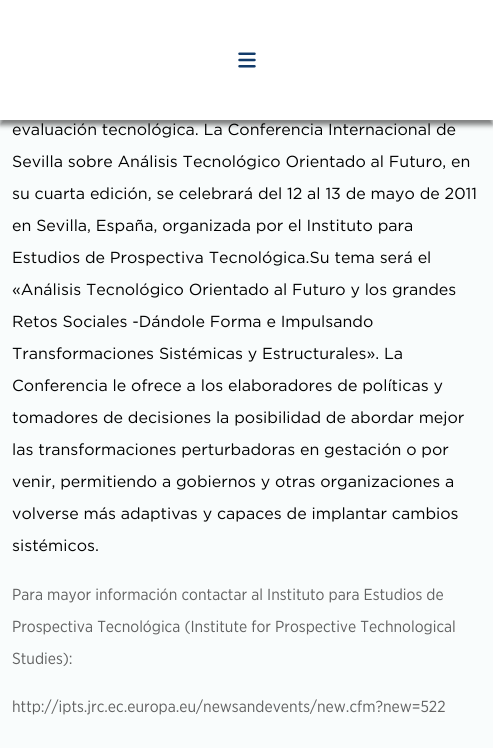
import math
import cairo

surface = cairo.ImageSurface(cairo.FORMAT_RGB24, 493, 748)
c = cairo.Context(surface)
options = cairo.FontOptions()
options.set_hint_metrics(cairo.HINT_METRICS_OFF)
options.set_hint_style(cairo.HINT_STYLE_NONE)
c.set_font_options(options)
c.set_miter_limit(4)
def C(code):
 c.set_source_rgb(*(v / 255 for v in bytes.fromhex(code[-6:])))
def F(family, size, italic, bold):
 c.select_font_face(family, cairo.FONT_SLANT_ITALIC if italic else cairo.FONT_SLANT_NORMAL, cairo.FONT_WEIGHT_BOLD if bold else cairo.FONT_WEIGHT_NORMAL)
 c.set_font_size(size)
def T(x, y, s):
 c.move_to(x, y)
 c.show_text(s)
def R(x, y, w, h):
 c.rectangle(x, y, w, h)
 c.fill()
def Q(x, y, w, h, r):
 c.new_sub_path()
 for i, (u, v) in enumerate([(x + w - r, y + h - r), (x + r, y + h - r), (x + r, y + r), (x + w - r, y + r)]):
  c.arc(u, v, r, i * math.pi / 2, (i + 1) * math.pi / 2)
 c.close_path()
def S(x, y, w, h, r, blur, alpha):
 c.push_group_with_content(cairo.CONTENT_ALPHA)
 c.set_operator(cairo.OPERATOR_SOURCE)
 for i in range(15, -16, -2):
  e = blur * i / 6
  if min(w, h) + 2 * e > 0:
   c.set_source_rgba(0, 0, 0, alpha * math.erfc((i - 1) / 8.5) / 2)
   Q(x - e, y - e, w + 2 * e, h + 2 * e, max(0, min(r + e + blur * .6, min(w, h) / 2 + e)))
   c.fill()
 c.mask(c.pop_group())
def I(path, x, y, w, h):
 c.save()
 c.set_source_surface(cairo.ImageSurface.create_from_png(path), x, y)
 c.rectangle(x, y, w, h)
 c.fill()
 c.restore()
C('f9fcfc')
c.paint()
C('000000')
S(0,5,493,120,0,2.5,.5)
C('ffffff')
R(0,0,493,120)
I('1.png',238,52,18,16)
F('Gotham',16,0,0)
C('000000')
T(12,135,'evaluación tecnológica. La Conferencia Internacional de')
T(12,167,'Sevilla sobre Análisis Tecnológico Orientado al Futuro, en')
T(12,199,'su cuarta edición, se celebrará del 12 al 13 de mayo de 2011')
T(12,231,'en Sevilla, España, organizada por el Instituto para')
T(12,263,'Estudios de Prospectiva Tecnológica.Su tema será el')
T(12,295,'«Análisis Tecnológico Orientado al Futuro y los grandes')
T(12,327,'Retos Sociales -Dándole Forma e Impulsando')
T(12,359,'Transformaciones Sistémicas y Estructurales». La')
T(12,391,'Conferencia le ofrece a los elaboradores de políticas y')
T(12,423,'tomadores de decisiones la posibilidad de abordar mejor')
T(12,455,'las transformaciones perturbadoras en gestación o por')
T(12,487,'venir, permitiendo a gobiernos y otras organizaciones a')
T(12,519,'volverse más adaptivas y capaces de implantar cambios')
T(12,551,'sistémicos.')
F('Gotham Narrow',16,0,0)
C('616161')
T(12,600,'Para mayor información contactar al Instituto para Estudios de')
T(12,632,'Prospectiva Tecnológica (Institute for Prospective Technological')
T(12,664,'Studies):')
T(12,712,'http://ipts.jrc.ec.europa.eu/newsandevents/new.cfm?new=522')
surface.write_to_png('o.png')
